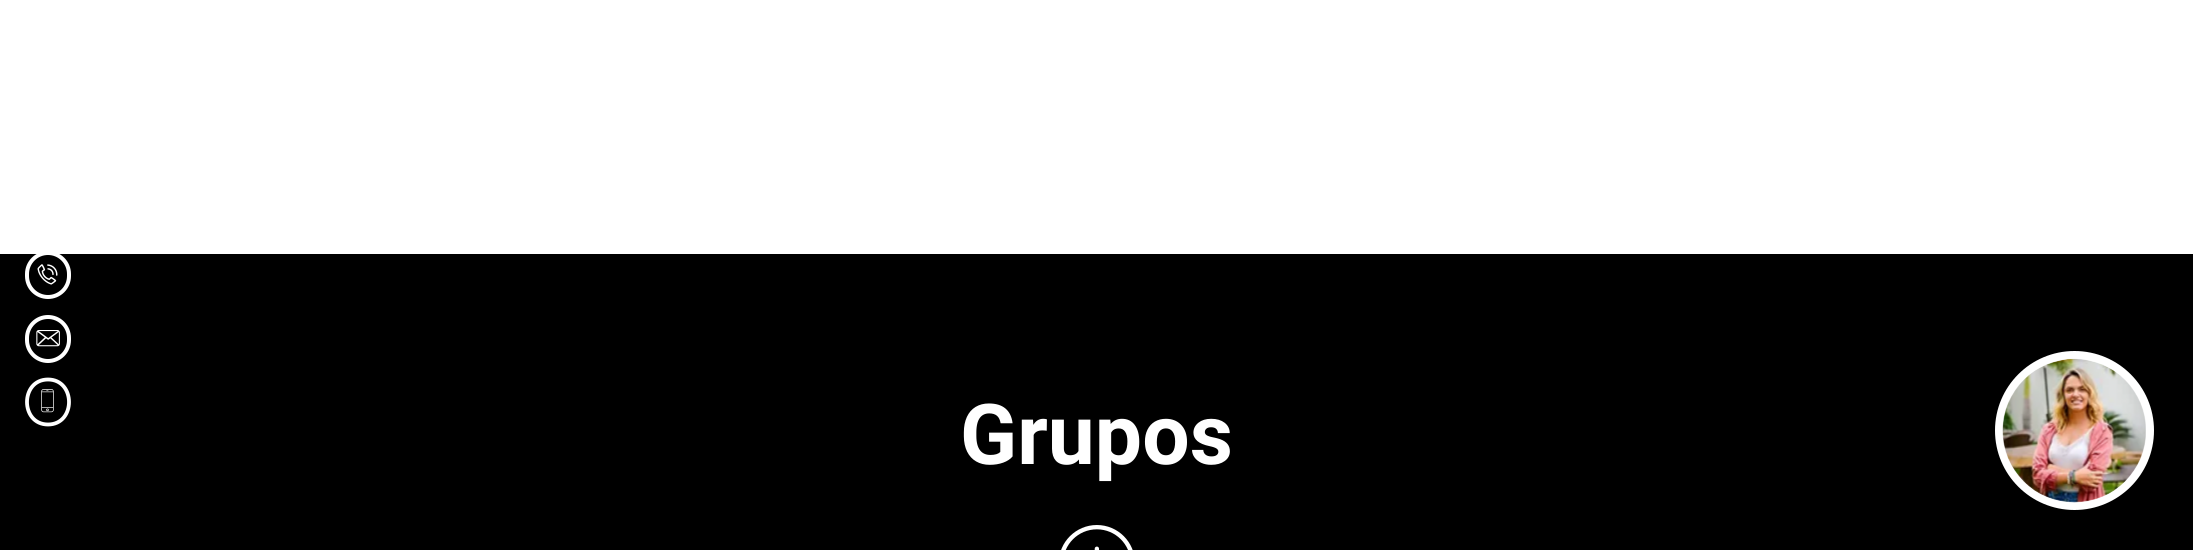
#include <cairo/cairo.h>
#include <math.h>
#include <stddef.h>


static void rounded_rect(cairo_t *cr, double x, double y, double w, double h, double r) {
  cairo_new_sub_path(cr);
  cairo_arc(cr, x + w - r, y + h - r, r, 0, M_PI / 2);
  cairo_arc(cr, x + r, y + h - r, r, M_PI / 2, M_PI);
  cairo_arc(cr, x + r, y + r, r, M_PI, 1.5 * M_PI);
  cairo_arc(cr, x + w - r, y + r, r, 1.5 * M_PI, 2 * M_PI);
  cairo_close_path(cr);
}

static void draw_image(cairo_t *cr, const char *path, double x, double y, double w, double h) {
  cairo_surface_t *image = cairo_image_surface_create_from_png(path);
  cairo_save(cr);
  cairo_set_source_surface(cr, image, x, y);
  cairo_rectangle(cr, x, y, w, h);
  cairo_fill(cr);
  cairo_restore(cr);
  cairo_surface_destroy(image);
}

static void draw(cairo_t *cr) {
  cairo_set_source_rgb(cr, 1, 1, 1);
  cairo_paint(cr);
  cairo_set_source_rgb(cr, 0, 0, 0);
  cairo_rectangle(cr, 0, 254, 2193, 296);
  cairo_fill(cr);
  rounded_rect(cr, 27, 253, 42, 44, 21);
  cairo_set_source_rgb(cr, 1, 1, 1);
  cairo_set_line_width(cr, 4);
  cairo_stroke(cr);
  draw_image(cr, "images/1.png", 37, 264, 21, 21);
  rounded_rect(cr, 27, 317, 42, 44, 21);
  cairo_stroke(cr);
  draw_image(cr, "images/2.png", 36, 330, 24, 17);
  cairo_new_path(cr);
  cairo_move_to(cr, 48, 379.5);
  cairo_curve_to(cr, 76, 379.5, 76, 424.5, 48, 424.5);
  cairo_curve_to(cr, 20, 424.5, 20, 379.5, 48, 379.5);
  cairo_close_path(cr);
  cairo_set_line_width(cr, 3.8);
  cairo_stroke(cr);
  draw_image(cr, "images/3.png", 41, 389, 13, 24);
  draw_image(cr, "images/4.png", 1061, 525, 72, 25);
  cairo_arc(cr, 2074.5, 430.5, 75.5, 0, 2 * M_PI);
  cairo_fill_preserve(cr);
  cairo_set_line_width(cr, 8);
  cairo_stroke(cr);
  draw_image(cr, "images/5.png", 2002, 358, 144, 145);
  cairo_select_font_face(cr, "Roboto", CAIRO_FONT_SLANT_NORMAL, CAIRO_FONT_WEIGHT_BOLD);
  cairo_set_font_size(cr, 84);
  cairo_move_to(cr, 960, 464);
  cairo_show_text(cr, "Grupos");
}

int main(void) {
  cairo_surface_t *surface = cairo_image_surface_create(CAIRO_FORMAT_RGB24, 2193, 550);
  cairo_t *cr = cairo_create(surface);
  cairo_font_options_t *options = cairo_font_options_create();
  cairo_font_options_set_hint_metrics(options, CAIRO_HINT_METRICS_OFF);
  cairo_font_options_set_hint_style(options, CAIRO_HINT_STYLE_NONE);
  cairo_set_font_options(cr, options);
  cairo_set_miter_limit(cr, 4);
  draw(cr);
  cairo_surface_write_to_png(surface, "out.png");
  cairo_font_options_destroy(options);
  cairo_destroy(cr);
  cairo_surface_destroy(surface);
  return 0;
}
